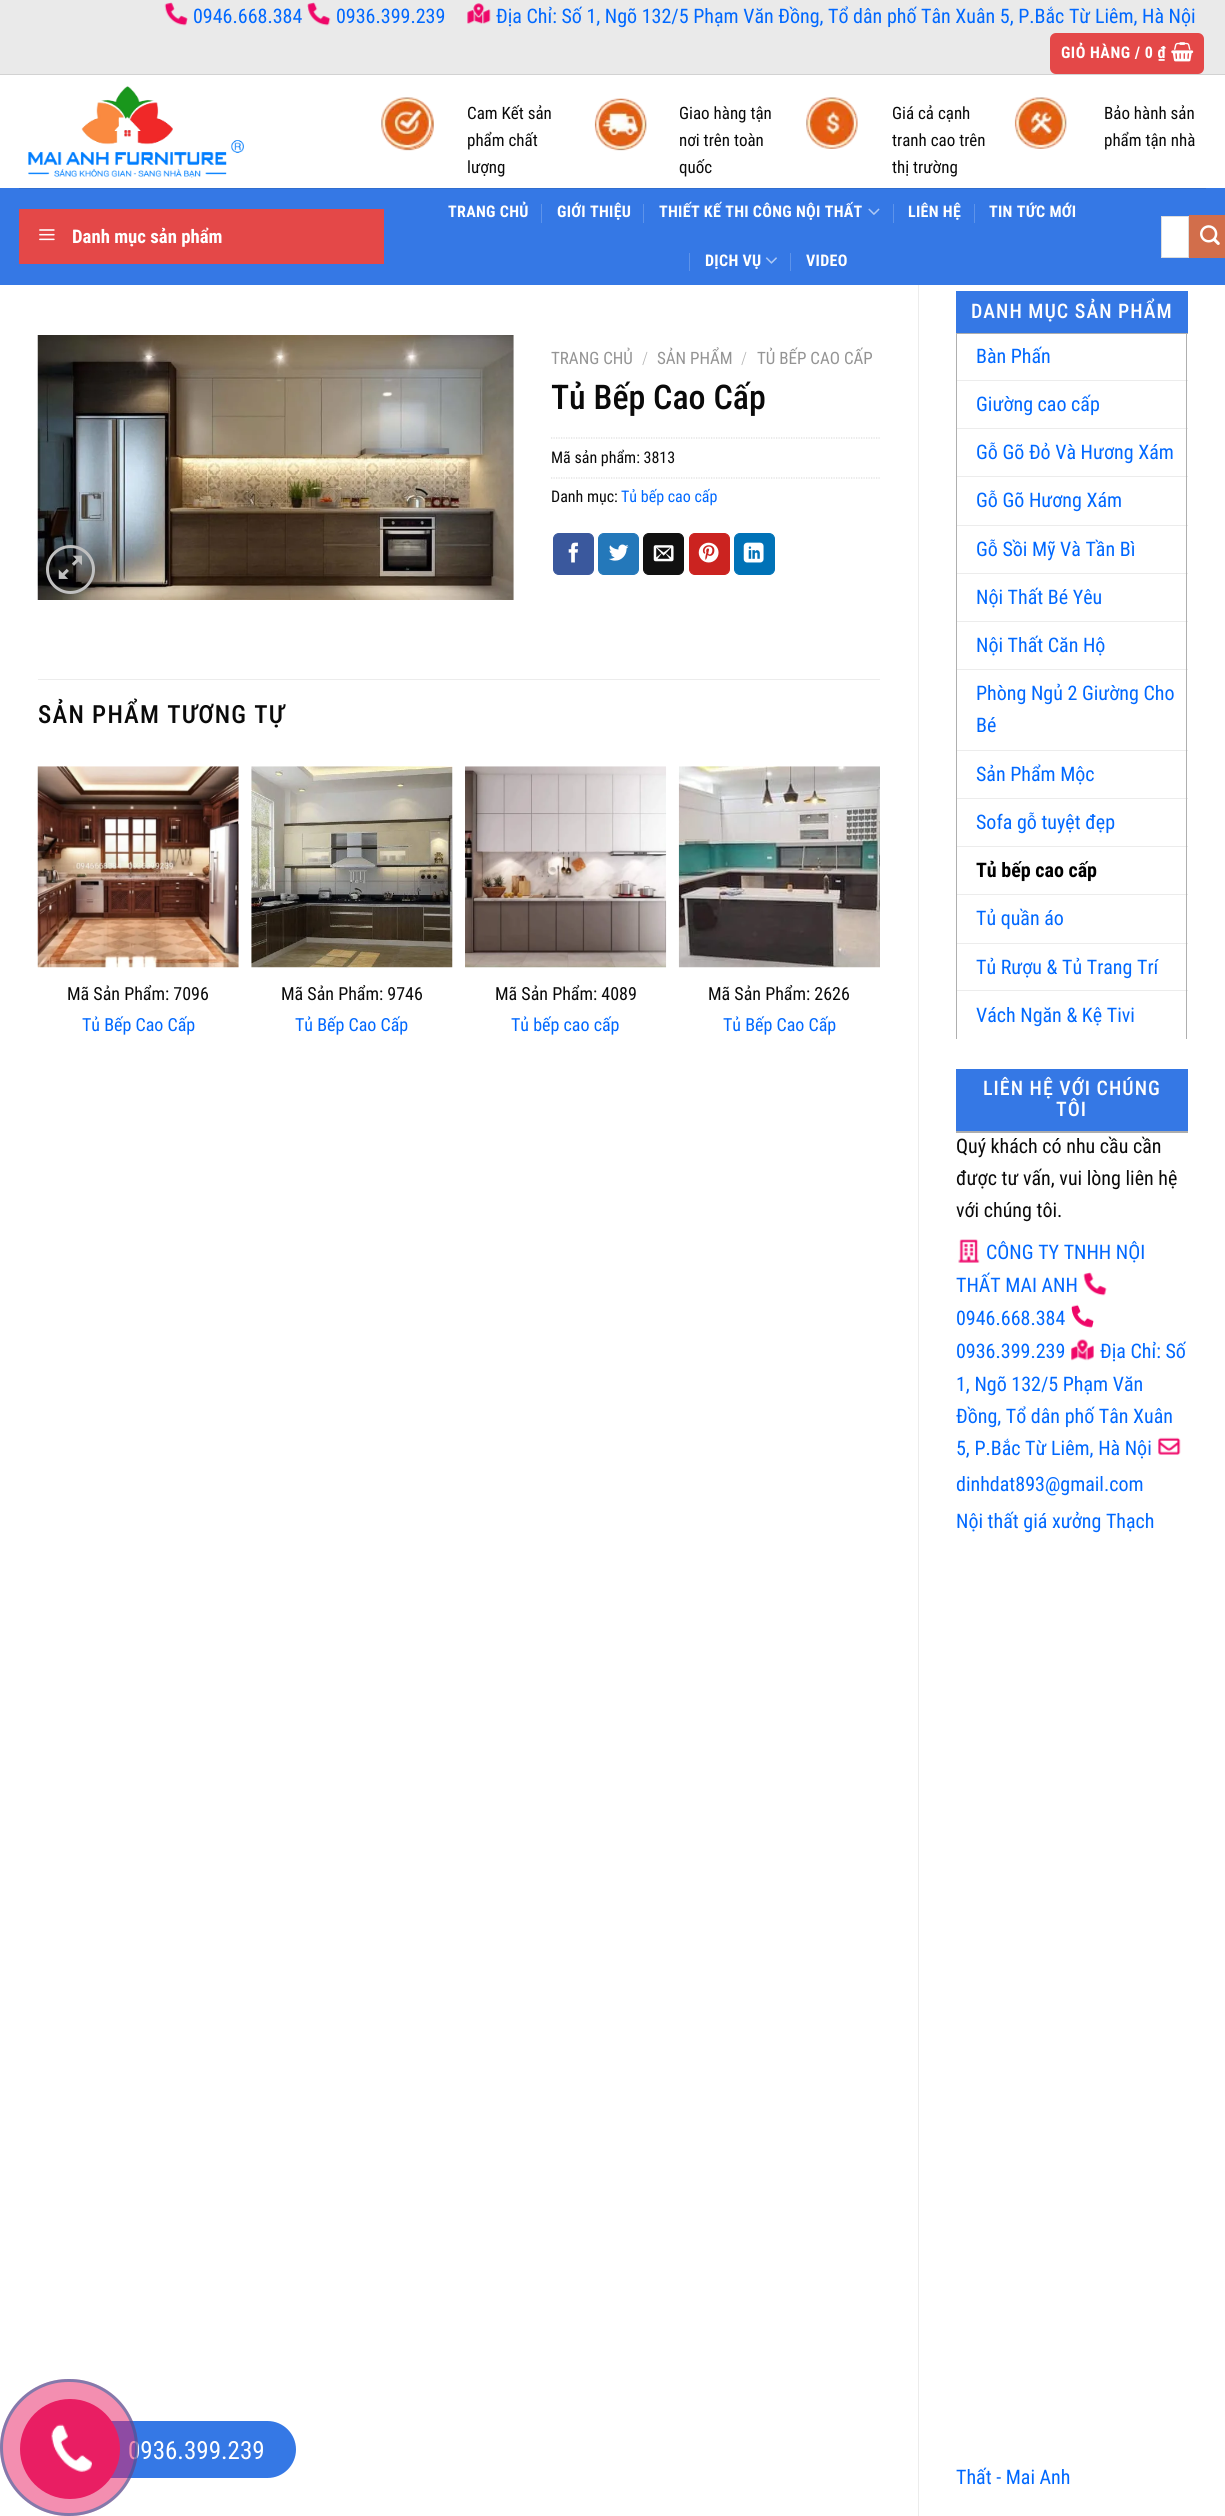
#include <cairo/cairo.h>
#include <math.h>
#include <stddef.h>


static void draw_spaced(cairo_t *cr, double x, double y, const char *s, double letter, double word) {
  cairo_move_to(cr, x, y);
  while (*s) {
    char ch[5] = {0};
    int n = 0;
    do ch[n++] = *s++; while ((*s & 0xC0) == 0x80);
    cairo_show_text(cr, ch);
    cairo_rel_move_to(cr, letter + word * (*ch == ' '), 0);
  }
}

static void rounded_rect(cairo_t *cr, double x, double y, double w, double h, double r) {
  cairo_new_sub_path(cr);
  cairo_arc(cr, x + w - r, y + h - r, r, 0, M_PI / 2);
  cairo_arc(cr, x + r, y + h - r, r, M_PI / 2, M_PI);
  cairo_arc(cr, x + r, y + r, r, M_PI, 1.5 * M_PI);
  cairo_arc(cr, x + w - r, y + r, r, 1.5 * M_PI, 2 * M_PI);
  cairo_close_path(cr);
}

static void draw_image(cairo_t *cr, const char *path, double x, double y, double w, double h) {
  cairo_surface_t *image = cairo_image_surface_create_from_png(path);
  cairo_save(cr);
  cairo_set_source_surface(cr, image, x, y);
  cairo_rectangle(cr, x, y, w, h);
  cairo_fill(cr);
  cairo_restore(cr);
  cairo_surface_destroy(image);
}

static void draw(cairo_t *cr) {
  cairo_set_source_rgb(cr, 1, 1, 1);
  cairo_paint(cr);
  cairo_set_source_rgb(cr, 234 / 255.0, 234 / 255.0, 234 / 255.0);
  cairo_rectangle(cr, 0, 0, 1225, 74);
  cairo_fill(cr);
  cairo_set_source_rgb(cr, 210 / 255.0, 210 / 255.0, 210 / 255.0);
  cairo_rectangle(cr, 0, 74, 1225, 1);
  cairo_fill(cr);
  draw_image(cr, "images/1.png", 164, 2, 24, 24);
  draw_image(cr, "images/2.png", 307, 2, 24, 24);
  draw_image(cr, "images/3.png", 467, 3, 24, 21);
  cairo_set_source_rgb(cr, 228 / 255.0, 72 / 255.0, 72 / 255.0);
  rounded_rect(cr, 1050, 33, 154, 41, 6);
  cairo_fill(cr);
  draw_image(cr, "images/4.png", 1171, 42, 23, 20);
  draw_image(cr, "images/5.png", 28, 86, 216, 92);
  draw_image(cr, "images/6.png", 381, 97, 53, 54);
  draw_image(cr, "images/7.png", 594, 98, 53, 53);
  draw_image(cr, "images/8.png", 806, 97, 52, 52);
  draw_image(cr, "images/9.png", 1014, 97, 53, 52);
  cairo_set_source_rgb(cr, 53 / 255.0, 120 / 255.0, 229 / 255.0);
  cairo_rectangle(cr, 0, 188, 1225, 97);
  cairo_fill(cr);
  cairo_set_source_rgb(cr, 49 / 255.0, 109 / 255.0, 207 / 255.0);
  cairo_rectangle(cr, 19, 188, 1187, 1);
  cairo_fill(cr);
  cairo_set_source_rgb(cr, 228 / 255.0, 72 / 255.0, 72 / 255.0);
  cairo_rectangle(cr, 19, 209, 365, 55);
  cairo_fill(cr);
  draw_image(cr, "images/10.png", 39, 229, 16, 12);
  cairo_set_source_rgb(cr, 93 / 255.0, 147 / 255.0, 234 / 255.0);
  cairo_rectangle(cr, 541, 204, 1, 19);
  cairo_fill(cr);
  cairo_rectangle(cr, 643, 204, 1, 19);
  cairo_fill(cr);
  draw_image(cr, "images/11.png", 868, 208, 12, 7);
  cairo_rectangle(cr, 893, 204, 1, 19);
  cairo_fill(cr);
  cairo_rectangle(cr, 974, 204, 1, 19);
  cairo_fill(cr);
  cairo_rectangle(cr, 689, 253, 1, 18);
  cairo_fill(cr);
  draw_image(cr, "images/12.png", 765, 257, 12, 7);
  cairo_rectangle(cr, 790, 253, 1, 18);
  cairo_fill(cr);
  cairo_set_source_rgb(cr, 1, 1, 1);
  cairo_rectangle(cr, 1161.5, 216.5, 27, 41);
  cairo_fill_preserve(cr);
  cairo_set_source_rgb(cr, 221 / 255.0, 221 / 255.0, 221 / 255.0);
  cairo_set_line_width(cr, 1);
  cairo_stroke(cr);
  cairo_set_source_rgb(cr, 210 / 255.0, 110 / 255.0, 75 / 255.0);
  cairo_rectangle(cr, 1189, 215, 36, 43);
  cairo_fill(cr);
  draw_image(cr, "images/13.png", 1200, 225, 20, 20);
  cairo_set_source_rgb(cr, 236 / 255.0, 236 / 255.0, 236 / 255.0);
  cairo_rectangle(cr, 918, 285, 1, 2231);
  cairo_fill(cr);
  draw_image(cr, "images/14.png", 37, 335, 477, 265);
  cairo_arc(cr, 70.5, 569.5, 23, 0, 2 * M_PI);
  cairo_set_source_rgb(cr, 192 / 255.0, 192 / 255.0, 192 / 255.0);
  cairo_set_line_width(cr, 3);
  cairo_stroke(cr);
  draw_image(cr, "images/15.png", 58, 555, 24, 24);
  cairo_new_path(cr);
  cairo_move_to(cr, 551, 438);
  cairo_line_to(cr, 880, 438);
  cairo_set_source_rgb(cr, 221 / 255.0, 221 / 255.0, 221 / 255.0);
  cairo_set_line_width(cr, 1.2);
  cairo_set_dash(cr, (double[]){1.25, 1.25}, 2, 0);
  cairo_stroke(cr);
  cairo_new_path(cr);
  cairo_move_to(cr, 551, 478);
  cairo_line_to(cr, 880, 478);
  cairo_stroke(cr);
  cairo_set_source_rgb(cr, 58 / 255.0, 88 / 255.0, 157 / 255.0);
  rounded_rect(cr, 553.5, 533.5, 40, 41, 5.5);
  cairo_fill_preserve(cr);
  cairo_set_line_width(cr, 1);
  cairo_set_dash(cr, NULL, 0, 0);
  cairo_stroke(cr);
  draw_image(cr, "images/16.png", 568, 542, 10, 21);
  cairo_set_source_rgb(cr, 36 / 255.0, 120 / 255.0, 186 / 255.0);
  rounded_rect(cr, 598.5, 533.5, 40, 41, 5.5);
  cairo_fill_preserve(cr);
  cairo_stroke(cr);
  draw_image(cr, "images/17.png", 609, 544, 20, 17);
  cairo_set_source_rgb(cr, 17 / 255.0, 17 / 255.0, 17 / 255.0);
  rounded_rect(cr, 643.5, 533.5, 40, 41, 5.5);
  cairo_fill_preserve(cr);
  cairo_stroke(cr);
  draw_image(cr, "images/18.png", 653, 545, 21, 17);
  cairo_set_source_rgb(cr, 203 / 255.0, 35 / 255.0, 32 / 255.0);
  rounded_rect(cr, 689.5, 533.5, 40, 41, 5.5);
  cairo_fill_preserve(cr);
  cairo_stroke(cr);
  draw_image(cr, "images/19.png", 698, 542, 21, 21);
  cairo_set_source_rgb(cr, 0, 114 / 255.0, 183 / 255.0);
  rounded_rect(cr, 734.5, 533.5, 40, 41, 5.5);
  cairo_fill_preserve(cr);
  cairo_stroke(cr);
  draw_image(cr, "images/20.png", 743, 542, 21, 21);
  cairo_set_source_rgb(cr, 236 / 255.0, 236 / 255.0, 236 / 255.0);
  cairo_rectangle(cr, 38, 679, 842, 1);
  cairo_fill(cr);
  draw_image(cr, "images/21.png", 37, 766, 202, 202);
  draw_image(cr, "images/22.png", 251, 766, 202, 202);
  draw_image(cr, "images/23.png", 465, 766, 202, 202);
  draw_image(cr, "images/24.png", 678, 766, 202, 202);
  cairo_set_source_rgb(cr, 173 / 255.0, 173 / 255.0, 173 / 255.0);
  cairo_new_path(cr);
  cairo_move_to(cr, 956, 293);
  cairo_line_to(cr, 956, 334);
  cairo_line_to(cr, 1188, 334);
  cairo_line_to(cr, 1188, 293);
  cairo_line_to(cr, 1188, 332);
  cairo_line_to(cr, 956, 332);
  cairo_close_path(cr);
  cairo_fill(cr);
  cairo_set_source_rgb(cr, 53 / 255.0, 120 / 255.0, 229 / 255.0);
  cairo_rectangle(cr, 956, 291, 232, 42);
  cairo_fill(cr);
  cairo_set_source_rgb(cr, 175 / 255.0, 175 / 255.0, 175 / 255.0);
  cairo_rectangle(cr, 1186, 333, 1, 47);
  cairo_fill(cr);
  cairo_rectangle(cr, 956, 333, 1, 47);
  cairo_fill(cr);
  cairo_set_source_rgb(cr, 236 / 255.0, 236 / 255.0, 236 / 255.0);
  cairo_rectangle(cr, 956, 380, 232, 1);
  cairo_fill(cr);
  cairo_set_source_rgb(cr, 175 / 255.0, 175 / 255.0, 175 / 255.0);
  cairo_rectangle(cr, 1186, 380, 1, 48);
  cairo_fill(cr);
  cairo_rectangle(cr, 956, 380, 1, 48);
  cairo_fill(cr);
  cairo_set_source_rgb(cr, 236 / 255.0, 236 / 255.0, 236 / 255.0);
  cairo_rectangle(cr, 956, 428, 232, 1);
  cairo_fill(cr);
  cairo_set_source_rgb(cr, 175 / 255.0, 175 / 255.0, 175 / 255.0);
  cairo_rectangle(cr, 1186, 428, 1, 48);
  cairo_fill(cr);
  cairo_rectangle(cr, 956, 428, 1, 48);
  cairo_fill(cr);
  cairo_set_source_rgb(cr, 236 / 255.0, 236 / 255.0, 236 / 255.0);
  cairo_rectangle(cr, 956, 476, 232, 1);
  cairo_fill(cr);
  cairo_set_source_rgb(cr, 175 / 255.0, 175 / 255.0, 175 / 255.0);
  cairo_rectangle(cr, 1186, 476, 1, 49);
  cairo_fill(cr);
  cairo_rectangle(cr, 956, 476, 1, 49);
  cairo_fill(cr);
  cairo_set_source_rgb(cr, 236 / 255.0, 236 / 255.0, 236 / 255.0);
  cairo_rectangle(cr, 956, 525, 232, 1);
  cairo_fill(cr);
  cairo_set_source_rgb(cr, 175 / 255.0, 175 / 255.0, 175 / 255.0);
  cairo_rectangle(cr, 1186, 525, 1, 48);
  cairo_fill(cr);
  cairo_rectangle(cr, 956, 525, 1, 48);
  cairo_fill(cr);
  cairo_set_source_rgb(cr, 236 / 255.0, 236 / 255.0, 236 / 255.0);
  cairo_rectangle(cr, 956, 573, 232, 1);
  cairo_fill(cr);
  cairo_set_source_rgb(cr, 175 / 255.0, 175 / 255.0, 175 / 255.0);
  cairo_rectangle(cr, 1186, 573, 1, 48);
  cairo_fill(cr);
  cairo_rectangle(cr, 956, 573, 1, 48);
  cairo_fill(cr);
  cairo_set_source_rgb(cr, 236 / 255.0, 236 / 255.0, 236 / 255.0);
  cairo_rectangle(cr, 956, 621, 232, 1);
  cairo_fill(cr);
  cairo_set_source_rgb(cr, 175 / 255.0, 175 / 255.0, 175 / 255.0);
  cairo_rectangle(cr, 1186, 621, 1, 48);
  cairo_fill(cr);
  cairo_rectangle(cr, 956, 621, 1, 48);
  cairo_fill(cr);
  cairo_set_source_rgb(cr, 236 / 255.0, 236 / 255.0, 236 / 255.0);
  cairo_rectangle(cr, 956, 669, 232, 1);
  cairo_fill(cr);
  cairo_set_source_rgb(cr, 175 / 255.0, 175 / 255.0, 175 / 255.0);
  cairo_rectangle(cr, 1186, 669, 1, 81);
  cairo_fill(cr);
  cairo_rectangle(cr, 956, 669, 1, 81);
  cairo_fill(cr);
  cairo_set_source_rgb(cr, 236 / 255.0, 236 / 255.0, 236 / 255.0);
  cairo_rectangle(cr, 956, 750, 232, 1);
  cairo_fill(cr);
  cairo_set_source_rgb(cr, 175 / 255.0, 175 / 255.0, 175 / 255.0);
  cairo_rectangle(cr, 1186, 750, 1, 48);
  cairo_fill(cr);
  cairo_rectangle(cr, 956, 750, 1, 48);
  cairo_fill(cr);
  cairo_set_source_rgb(cr, 236 / 255.0, 236 / 255.0, 236 / 255.0);
  cairo_rectangle(cr, 956, 798, 232, 1);
  cairo_fill(cr);
  cairo_set_source_rgb(cr, 175 / 255.0, 175 / 255.0, 175 / 255.0);
  cairo_rectangle(cr, 1186, 798, 1, 48);
  cairo_fill(cr);
  cairo_rectangle(cr, 956, 798, 1, 48);
  cairo_fill(cr);
  cairo_set_source_rgb(cr, 236 / 255.0, 236 / 255.0, 236 / 255.0);
  cairo_rectangle(cr, 956, 846, 232, 1);
  cairo_fill(cr);
  cairo_set_source_rgb(cr, 175 / 255.0, 175 / 255.0, 175 / 255.0);
  cairo_rectangle(cr, 1186, 846, 1, 48);
  cairo_fill(cr);
  cairo_rectangle(cr, 956, 846, 1, 48);
  cairo_fill(cr);
  cairo_set_source_rgb(cr, 236 / 255.0, 236 / 255.0, 236 / 255.0);
  cairo_rectangle(cr, 956, 894, 232, 1);
  cairo_fill(cr);
  cairo_set_source_rgb(cr, 175 / 255.0, 175 / 255.0, 175 / 255.0);
  cairo_rectangle(cr, 1186, 894, 1, 49);
  cairo_fill(cr);
  cairo_rectangle(cr, 956, 894, 1, 49);
  cairo_fill(cr);
  cairo_set_source_rgb(cr, 236 / 255.0, 236 / 255.0, 236 / 255.0);
  cairo_rectangle(cr, 956, 943, 232, 1);
  cairo_fill(cr);
  cairo_set_source_rgb(cr, 175 / 255.0, 175 / 255.0, 175 / 255.0);
  cairo_rectangle(cr, 1186, 943, 1, 47);
  cairo_fill(cr);
  cairo_rectangle(cr, 956, 943, 1, 47);
  cairo_fill(cr);
  cairo_set_source_rgb(cr, 236 / 255.0, 236 / 255.0, 236 / 255.0);
  cairo_rectangle(cr, 956, 990, 232, 1);
  cairo_fill(cr);
  cairo_set_source_rgb(cr, 175 / 255.0, 175 / 255.0, 175 / 255.0);
  cairo_rectangle(cr, 1186, 990, 1, 49);
  cairo_fill(cr);
  cairo_rectangle(cr, 956, 990, 1, 49);
  cairo_fill(cr);
  cairo_set_source_rgb(cr, 173 / 255.0, 173 / 255.0, 173 / 255.0);
  cairo_new_path(cr);
  cairo_move_to(cr, 956, 1070);
  cairo_line_to(cr, 956, 1133);
  cairo_line_to(cr, 1188, 1133);
  cairo_line_to(cr, 1188, 1070);
  cairo_line_to(cr, 1188, 1131);
  cairo_line_to(cr, 956, 1131);
  cairo_close_path(cr);
  cairo_fill(cr);
  cairo_set_source_rgb(cr, 53 / 255.0, 120 / 255.0, 229 / 255.0);
  cairo_rectangle(cr, 956, 1069, 232, 62);
  cairo_fill(cr);
  draw_image(cr, "images/25.png", 958, 1239, 22, 24);
  draw_image(cr, "images/26.png", 1083, 1272, 24, 24);
  draw_image(cr, "images/27.png", 1071, 1304, 23, 24);
  draw_image(cr, "images/28.png", 1071, 1339, 23, 22);
  draw_image(cr, "images/29.png", 1158, 1437, 23, 18);
  rounded_rect(cr, 65, 2421, 231, 57, 28.5);
  cairo_fill(cr);
  cairo_select_font_face(cr, "Roboto Condensed", CAIRO_FONT_SLANT_NORMAL, CAIRO_FONT_WEIGHT_NORMAL);
  cairo_set_font_size(cr, 20);
  cairo_set_source_rgb(cr, 0, 104 / 255.0, 1);
  cairo_move_to(cr, 193, 23);
  cairo_show_text(cr, "0946.668.384");
  cairo_move_to(cr, 336, 23);
  cairo_show_text(cr, "0936.399.239");
  cairo_move_to(cr, 496, 23);
  cairo_show_text(cr, "Địa Chỉ: Số 1, Ngõ 132/5 Phạm Văn Đồng, Tổ dân phố Tân Xuân 5, P.Bắc Từ Liêm, Hà Nội");
  cairo_select_font_face(cr, "Roboto Condensed", CAIRO_FONT_SLANT_NORMAL, CAIRO_FONT_WEIGHT_BOLD);
  cairo_set_font_size(cr, 16);
  cairo_set_source_rgb(cr, 1, 1, 1);
  draw_spaced(cr, 1061, 58, "GIỎ HÀNG / 0 ₫", 0.5, 0);
  cairo_select_font_face(cr, "Roboto Condensed", CAIRO_FONT_SLANT_NORMAL, CAIRO_FONT_WEIGHT_NORMAL);
  cairo_set_font_size(cr, 17);
  cairo_set_source_rgb(cr, 10 / 255.0, 10 / 255.0, 10 / 255.0);
  cairo_move_to(cr, 467, 119);
  cairo_show_text(cr, "Cam Kết sản");
  cairo_move_to(cr, 467, 146);
  cairo_show_text(cr, "phẩm chất");
  cairo_move_to(cr, 467, 173);
  cairo_show_text(cr, "lượng");
  cairo_move_to(cr, 679, 119);
  cairo_show_text(cr, "Giao hàng tận");
  cairo_move_to(cr, 679, 146);
  cairo_show_text(cr, "nơi trên toàn");
  cairo_move_to(cr, 679, 173);
  cairo_show_text(cr, "quốc");
  cairo_move_to(cr, 892, 119);
  cairo_show_text(cr, "Giá cả cạnh");
  cairo_move_to(cr, 892, 146);
  cairo_show_text(cr, "tranh cao trên");
  cairo_move_to(cr, 892, 173);
  cairo_show_text(cr, "thị trường");
  cairo_move_to(cr, 1104, 119);
  cairo_show_text(cr, "Bảo hành sản");
  cairo_move_to(cr, 1104, 146);
  cairo_show_text(cr, "phẩm tận nhà");
  cairo_select_font_face(cr, "Roboto Condensed", CAIRO_FONT_SLANT_NORMAL, CAIRO_FONT_WEIGHT_BOLD);
  cairo_set_font_size(cr, 18.75);
  cairo_set_source_rgb(cr, 1, 1, 1);
  cairo_move_to(cr, 72, 243);
  cairo_show_text(cr, "Danh mục sản phẩm");
  cairo_set_font_size(cr, 16);
  draw_spaced(cr, 448, 217, "TRANG CHỦ", 0.3, 0);
  draw_spaced(cr, 557, 217, "GIỚI THIỆU", 0.3, 0);
  draw_spaced(cr, 659, 217, "THIẾT KẾ THI CÔNG NỘI THẤT", 0.3, 0);
  draw_spaced(cr, 908, 217, "LIÊN HỆ", 0.3, 0);
  draw_spaced(cr, 989, 217, "TIN TỨC MỚI", 0.3, 0);
  draw_spaced(cr, 705, 266, "DỊCH VỤ", 0.3, 0);
  draw_spaced(cr, 806, 266, "VIDEO", 0.3, 0);
  cairo_select_font_face(cr, "Roboto Condensed", CAIRO_FONT_SLANT_NORMAL, CAIRO_FONT_WEIGHT_NORMAL);
  cairo_set_font_size(cr, 17);
  cairo_set_source_rgb(cr, 148 / 255.0, 148 / 255.0, 148 / 255.0);
  cairo_move_to(cr, 551, 364);
  cairo_show_text(cr, "TRANG CHỦ");
  cairo_select_font_face(cr, "Roboto Condensed Light", CAIRO_FONT_SLANT_NORMAL, CAIRO_FONT_WEIGHT_NORMAL);
  cairo_set_source_rgb(cr, 178 / 255.0, 178 / 255.0, 178 / 255.0);
  cairo_move_to(cr, 642, 364);
  cairo_show_text(cr, "/");
  cairo_select_font_face(cr, "Roboto Condensed", CAIRO_FONT_SLANT_NORMAL, CAIRO_FONT_WEIGHT_NORMAL);
  cairo_set_source_rgb(cr, 148 / 255.0, 148 / 255.0, 148 / 255.0);
  cairo_move_to(cr, 657, 364);
  cairo_show_text(cr, "SẢN PHẨM");
  cairo_select_font_face(cr, "Roboto Condensed Light", CAIRO_FONT_SLANT_NORMAL, CAIRO_FONT_WEIGHT_NORMAL);
  cairo_set_source_rgb(cr, 178 / 255.0, 178 / 255.0, 178 / 255.0);
  cairo_move_to(cr, 741, 364);
  cairo_show_text(cr, "/");
  cairo_select_font_face(cr, "Roboto Condensed", CAIRO_FONT_SLANT_NORMAL, CAIRO_FONT_WEIGHT_NORMAL);
  cairo_set_source_rgb(cr, 148 / 255.0, 148 / 255.0, 148 / 255.0);
  cairo_move_to(cr, 757, 364);
  cairo_show_text(cr, "TỦ BẾP CAO CẤP");
  cairo_select_font_face(cr, "Roboto Condensed Medium", CAIRO_FONT_SLANT_NORMAL, CAIRO_FONT_WEIGHT_NORMAL);
  cairo_set_font_size(cr, 34);
  cairo_set_source_rgb(cr, 10 / 255.0, 10 / 255.0, 10 / 255.0);
  cairo_move_to(cr, 551, 409);
  cairo_show_text(cr, "Tủ Bếp Cao Cấp");
  cairo_select_font_face(cr, "Roboto Condensed", CAIRO_FONT_SLANT_NORMAL, CAIRO_FONT_WEIGHT_NORMAL);
  cairo_set_font_size(cr, 16);
  cairo_move_to(cr, 551, 463);
  cairo_show_text(cr, "Mã sản phẩm: 3813");
  cairo_move_to(cr, 551, 502);
  cairo_show_text(cr, "Danh mục:");
  cairo_set_source_rgb(cr, 0, 104 / 255.0, 1);
  cairo_move_to(cr, 621, 502);
  cairo_show_text(cr, "Tủ bếp cao cấp");
  cairo_select_font_face(cr, "Roboto Condensed Medium", CAIRO_FONT_SLANT_NORMAL, CAIRO_FONT_WEIGHT_NORMAL);
  cairo_set_font_size(cr, 25);
  cairo_set_source_rgb(cr, 10 / 255.0, 10 / 255.0, 10 / 255.0);
  draw_spaced(cr, 38, 723, "SẢN PHẨM TƯƠNG TỰ", 1.25, 0);
  cairo_select_font_face(cr, "Roboto Condensed", CAIRO_FONT_SLANT_NORMAL, CAIRO_FONT_WEIGHT_NORMAL);
  cairo_set_font_size(cr, 18);
  cairo_move_to(cr, 67, 1000);
  cairo_show_text(cr, "Mã Sản Phẩm: 7096");
  cairo_set_source_rgb(cr, 0, 104 / 255.0, 1);
  cairo_move_to(cr, 82, 1031);
  cairo_show_text(cr, "Tủ Bếp Cao Cấp");
  cairo_set_source_rgb(cr, 10 / 255.0, 10 / 255.0, 10 / 255.0);
  cairo_move_to(cr, 281, 1000);
  cairo_show_text(cr, "Mã Sản Phẩm: 9746");
  cairo_set_source_rgb(cr, 0, 104 / 255.0, 1);
  cairo_move_to(cr, 295, 1031);
  cairo_show_text(cr, "Tủ Bếp Cao Cấp");
  cairo_set_source_rgb(cr, 10 / 255.0, 10 / 255.0, 10 / 255.0);
  cairo_move_to(cr, 495, 1000);
  cairo_show_text(cr, "Mã Sản Phẩm: 4089");
  cairo_set_source_rgb(cr, 0, 104 / 255.0, 1);
  cairo_move_to(cr, 511, 1031);
  cairo_show_text(cr, "Tủ bếp cao cấp");
  cairo_set_source_rgb(cr, 10 / 255.0, 10 / 255.0, 10 / 255.0);
  cairo_move_to(cr, 708, 1000);
  cairo_show_text(cr, "Mã Sản Phẩm: 2626");
  cairo_set_source_rgb(cr, 0, 104 / 255.0, 1);
  cairo_move_to(cr, 723, 1031);
  cairo_show_text(cr, "Tủ Bếp Cao Cấp");
  cairo_select_font_face(cr, "Roboto Condensed Medium", CAIRO_FONT_SLANT_NORMAL, CAIRO_FONT_WEIGHT_NORMAL);
  cairo_set_font_size(cr, 20);
  cairo_set_source_rgb(cr, 1, 1, 1);
  draw_spaced(cr, 971, 318, "DANH MỤC SẢN PHẨM", 1, 0);
  cairo_select_font_face(cr, "Roboto Condensed", CAIRO_FONT_SLANT_NORMAL, CAIRO_FONT_WEIGHT_NORMAL);
  cairo_set_source_rgb(cr, 0, 104 / 255.0, 1);
  cairo_move_to(cr, 976, 363);
  cairo_show_text(cr, "Bàn Phấn");
  cairo_move_to(cr, 976, 411);
  cairo_show_text(cr, "Giường cao cấp");
  cairo_move_to(cr, 976, 459);
  cairo_show_text(cr, "Gỗ Gõ Đỏ Và Hương Xám");
  cairo_move_to(cr, 976, 507);
  cairo_show_text(cr, "Gỗ Gõ Hương Xám");
  cairo_move_to(cr, 976, 556);
  cairo_show_text(cr, "Gỗ Sồi Mỹ Và Tần Bì");
  cairo_move_to(cr, 976, 604);
  cairo_show_text(cr, "Nội Thất Bé Yêu");
  cairo_move_to(cr, 976, 652);
  cairo_show_text(cr, "Nội Thất Căn Hộ");
  cairo_move_to(cr, 976, 700);
  cairo_show_text(cr, "Phòng Ngủ 2 Giường Cho");
  cairo_move_to(cr, 976, 732);
  cairo_show_text(cr, "Bé");
  cairo_move_to(cr, 976, 781);
  cairo_show_text(cr, "Sản Phẩm Mộc");
  cairo_move_to(cr, 976, 829);
  cairo_show_text(cr, "Sofa gỗ tuyệt đẹp");
  cairo_select_font_face(cr, "Roboto Condensed", CAIRO_FONT_SLANT_NORMAL, CAIRO_FONT_WEIGHT_BOLD);
  cairo_set_source_rgb(cr, 0, 0, 0);
  cairo_move_to(cr, 976, 877);
  cairo_show_text(cr, "Tủ bếp cao cấp");
  cairo_select_font_face(cr, "Roboto Condensed", CAIRO_FONT_SLANT_NORMAL, CAIRO_FONT_WEIGHT_NORMAL);
  cairo_set_source_rgb(cr, 0, 104 / 255.0, 1);
  cairo_move_to(cr, 976, 925);
  cairo_show_text(cr, "Tủ quần áo");
  cairo_move_to(cr, 976, 974);
  cairo_show_text(cr, "Tủ Rượu & Tủ Trang Trí");
  cairo_move_to(cr, 976, 1022);
  cairo_show_text(cr, "Vách Ngăn & Kệ Tivi");
  cairo_select_font_face(cr, "Roboto Condensed Medium", CAIRO_FONT_SLANT_NORMAL, CAIRO_FONT_WEIGHT_NORMAL);
  cairo_set_source_rgb(cr, 1, 1, 1);
  draw_spaced(cr, 983, 1095, "LIÊN HỆ VỚI CHÚNG", 1, 0);
  draw_spaced(cr, 1056, 1116, "TÔI", 1, 0);
  cairo_select_font_face(cr, "Roboto Condensed", CAIRO_FONT_SLANT_NORMAL, CAIRO_FONT_WEIGHT_NORMAL);
  cairo_set_source_rgb(cr, 10 / 255.0, 10 / 255.0, 10 / 255.0);
  cairo_move_to(cr, 956, 1153);
  cairo_show_text(cr, "Quý khách có nhu cầu cần");
  cairo_move_to(cr, 956, 1185);
  cairo_show_text(cr, "được tư vấn, vui lòng liên hệ");
  cairo_move_to(cr, 956, 1217);
  cairo_show_text(cr, "với chúng tôi.");
  cairo_set_source_rgb(cr, 0, 104 / 255.0, 1);
  cairo_move_to(cr, 986, 1259);
  cairo_show_text(cr, "CÔNG TY TNHH NỘI");
  cairo_move_to(cr, 956, 1292);
  cairo_show_text(cr, "THẤT MAI ANH");
  cairo_move_to(cr, 956, 1325);
  cairo_show_text(cr, "0946.668.384");
  cairo_move_to(cr, 1100, 1358);
  cairo_show_text(cr, "Địa Chỉ: Số");
  cairo_move_to(cr, 956, 1391);
  cairo_show_text(cr, "1, Ngõ 132/5 Phạm Văn");
  cairo_move_to(cr, 956, 1423);
  cairo_show_text(cr, "Đồng, Tổ dân phố Tân Xuân");
  cairo_move_to(cr, 956, 1455);
  cairo_show_text(cr, "5, P.Bắc Từ Liêm, Hà Nội");
  cairo_move_to(cr, 956, 1358);
  cairo_show_text(cr, "0936.399.239");
  cairo_move_to(cr, 956, 1491);
  cairo_show_text(cr, "dinhdat893@gmail.com");
  cairo_move_to(cr, 956, 1528);
  cairo_show_text(cr, "Nội thất giá xưởng Thạch");
  cairo_move_to(cr, 956, 2484);
  cairo_show_text(cr, "Thất - Mai Anh");
  cairo_set_font_size(cr, 25);
  cairo_set_source_rgb(cr, 1, 1, 1);
  cairo_move_to(cr, 128, 2459);
  cairo_show_text(cr, "0936.399.239");
  cairo_set_source_rgba(cr, 233 / 255.0, 30 / 255.0, 99 / 255.0, 0.5);
  rounded_rect(cr, 0, 2379, 138, 137, 68.5);
  cairo_fill(cr);
  rounded_rect(cr, 1.5, 2380.5, 135, 134, 67);
  cairo_set_source_rgba(cr, 21 / 255.0, 100 / 255.0, 167 / 255.0, 0.5);
  cairo_set_line_width(cr, 3);
  cairo_stroke(cr);
  cairo_set_source_rgb(cr, 233 / 255.0, 30 / 255.0, 99 / 255.0);
  cairo_arc(cr, 70, 2449, 50, 0, 2 * M_PI);
  cairo_fill(cr);
  draw_image(cr, "images/30.png", 51, 2424, 41, 48);
}

int main(void) {
  cairo_surface_t *surface = cairo_image_surface_create(CAIRO_FORMAT_RGB24, 1225, 2516);
  cairo_t *cr = cairo_create(surface);
  cairo_font_options_t *options = cairo_font_options_create();
  cairo_font_options_set_hint_metrics(options, CAIRO_HINT_METRICS_OFF);
  cairo_font_options_set_hint_style(options, CAIRO_HINT_STYLE_NONE);
  cairo_set_font_options(cr, options);
  cairo_set_miter_limit(cr, 4);
  draw(cr);
  cairo_surface_write_to_png(surface, "out.png");
  cairo_font_options_destroy(options);
  cairo_destroy(cr);
  cairo_surface_destroy(surface);
  return 0;
}
